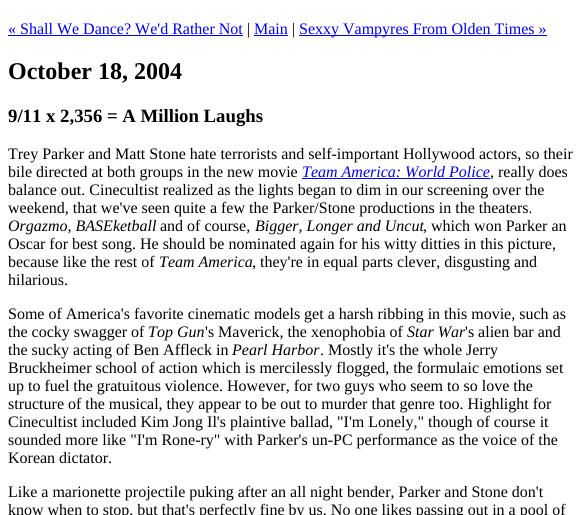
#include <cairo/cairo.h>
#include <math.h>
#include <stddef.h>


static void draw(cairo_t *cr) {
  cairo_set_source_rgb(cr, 1, 1, 1);
  cairo_paint(cr);
  cairo_set_source_rgb(cr, 0, 0, 238 / 255.0);
  cairo_rectangle(cr, 8, 35, 235, 1);
  cairo_fill(cr);
  cairo_rectangle(cr, 254, 35, 34, 1);
  cairo_fill(cr);
  cairo_rectangle(cr, 299, 35, 248, 1);
  cairo_fill(cr);
  cairo_rectangle(cr, 302, 178, 188, 1);
  cairo_fill(cr);
  cairo_select_font_face(cr, "Liberation Serif", CAIRO_FONT_SLANT_NORMAL, CAIRO_FONT_WEIGHT_NORMAL);
  cairo_set_font_size(cr, 16);
  cairo_move_to(cr, 8, 34);
  cairo_show_text(cr, "« Shall We Dance? We'd Rather Not");
  cairo_set_source_rgb(cr, 0, 0, 0);
  cairo_move_to(cr, 247, 34);
  cairo_show_text(cr, "|");
  cairo_set_source_rgb(cr, 0, 0, 238 / 255.0);
  cairo_move_to(cr, 254, 34);
  cairo_show_text(cr, "Main");
  cairo_set_source_rgb(cr, 0, 0, 0);
  cairo_move_to(cr, 292, 34);
  cairo_show_text(cr, "|");
  cairo_set_source_rgb(cr, 0, 0, 238 / 255.0);
  cairo_move_to(cr, 299, 34);
  cairo_show_text(cr, "Sexxy Vampyres From Olden Times »");
  cairo_select_font_face(cr, "Liberation Serif", CAIRO_FONT_SLANT_NORMAL, CAIRO_FONT_WEIGHT_BOLD);
  cairo_set_font_size(cr, 24);
  cairo_set_source_rgb(cr, 0, 0, 0);
  cairo_move_to(cr, 8, 79);
  cairo_show_text(cr, "October 18, 2004");
  cairo_set_font_size(cr, 18.75);
  cairo_move_to(cr, 8, 122);
  cairo_show_text(cr, "9/11 x 2,356 = A Million Laughs");
  cairo_select_font_face(cr, "Liberation Serif", CAIRO_FONT_SLANT_NORMAL, CAIRO_FONT_WEIGHT_NORMAL);
  cairo_set_font_size(cr, 16);
  cairo_move_to(cr, 8, 159);
  cairo_show_text(cr, "Trey Parker and Matt Stone hate terrorists and self-important Hollywood actors, so their");
  cairo_move_to(cr, 8, 177);
  cairo_show_text(cr, "bile directed at both groups in the new movie");
  cairo_select_font_face(cr, "Liberation Serif", CAIRO_FONT_SLANT_ITALIC, CAIRO_FONT_WEIGHT_NORMAL);
  cairo_set_source_rgb(cr, 0, 0, 238 / 255.0);
  cairo_move_to(cr, 302, 177);
  cairo_show_text(cr, "Team America: World Police");
  cairo_select_font_face(cr, "Liberation Serif", CAIRO_FONT_SLANT_NORMAL, CAIRO_FONT_WEIGHT_NORMAL);
  cairo_set_source_rgb(cr, 0, 0, 0);
  cairo_move_to(cr, 490, 177);
  cairo_show_text(cr, ", really does");
  cairo_move_to(cr, 8, 195);
  cairo_show_text(cr, "balance out. Cinecultist realized as the lights began to dim in our screening over the");
  cairo_move_to(cr, 8, 213);
  cairo_show_text(cr, "weekend, that we've seen quite a few the Parker/Stone productions in the theaters.");
  cairo_select_font_face(cr, "Liberation Serif", CAIRO_FONT_SLANT_ITALIC, CAIRO_FONT_WEIGHT_NORMAL);
  cairo_move_to(cr, 8, 231);
  cairo_show_text(cr, "Orgazmo, BASEketball");
  cairo_select_font_face(cr, "Liberation Serif", CAIRO_FONT_SLANT_NORMAL, CAIRO_FONT_WEIGHT_NORMAL);
  cairo_move_to(cr, 160, 231);
  cairo_show_text(cr, "and of course,");
  cairo_select_font_face(cr, "Liberation Serif", CAIRO_FONT_SLANT_ITALIC, CAIRO_FONT_WEIGHT_NORMAL);
  cairo_move_to(cr, 255, 231);
  cairo_show_text(cr, "Bigger, Longer and Uncut");
  cairo_select_font_face(cr, "Liberation Serif", CAIRO_FONT_SLANT_NORMAL, CAIRO_FONT_WEIGHT_NORMAL);
  cairo_move_to(cr, 423, 231);
  cairo_show_text(cr, ", which won Parker an");
  cairo_move_to(cr, 8, 249);
  cairo_show_text(cr, "Oscar for best song. He should be nominated again for his witty ditties in this picture,");
  cairo_move_to(cr, 8, 267);
  cairo_show_text(cr, "because like the rest of");
  cairo_select_font_face(cr, "Liberation Serif", CAIRO_FONT_SLANT_ITALIC, CAIRO_FONT_WEIGHT_NORMAL);
  cairo_move_to(cr, 159, 267);
  cairo_show_text(cr, "Team America");
  cairo_select_font_face(cr, "Liberation Serif", CAIRO_FONT_SLANT_NORMAL, CAIRO_FONT_WEIGHT_NORMAL);
  cairo_move_to(cr, 252, 267);
  cairo_show_text(cr, ", they're in equal parts clever, disgusting and");
  cairo_move_to(cr, 8, 285);
  cairo_show_text(cr, "hilarious.");
  cairo_move_to(cr, 8, 319);
  cairo_show_text(cr, "Some of America's favorite cinematic models get a harsh ribbing in this movie, such as");
  cairo_move_to(cr, 8, 337);
  cairo_show_text(cr, "the cocky swagger of");
  cairo_select_font_face(cr, "Liberation Serif", CAIRO_FONT_SLANT_ITALIC, CAIRO_FONT_WEIGHT_NORMAL);
  cairo_move_to(cr, 148, 337);
  cairo_show_text(cr, "Top Gun");
  cairo_select_font_face(cr, "Liberation Serif", CAIRO_FONT_SLANT_NORMAL, CAIRO_FONT_WEIGHT_NORMAL);
  cairo_move_to(cr, 205, 337);
  cairo_show_text(cr, "'s Maverick, the xenophobia of");
  cairo_select_font_face(cr, "Liberation Serif", CAIRO_FONT_SLANT_ITALIC, CAIRO_FONT_WEIGHT_NORMAL);
  cairo_move_to(cr, 407, 337);
  cairo_show_text(cr, "Star War");
  cairo_select_font_face(cr, "Liberation Serif", CAIRO_FONT_SLANT_NORMAL, CAIRO_FONT_WEIGHT_NORMAL);
  cairo_move_to(cr, 465, 337);
  cairo_show_text(cr, "'s alien bar and");
  cairo_move_to(cr, 8, 355);
  cairo_show_text(cr, "the sucky acting of Ben Affleck in");
  cairo_select_font_face(cr, "Liberation Serif", CAIRO_FONT_SLANT_ITALIC, CAIRO_FONT_WEIGHT_NORMAL);
  cairo_move_to(cr, 232, 355);
  cairo_show_text(cr, "Pearl Harbor");
  cairo_select_font_face(cr, "Liberation Serif", CAIRO_FONT_SLANT_NORMAL, CAIRO_FONT_WEIGHT_NORMAL);
  cairo_move_to(cr, 320, 355);
  cairo_show_text(cr, ". Mostly it's the whole Jerry");
  cairo_move_to(cr, 8, 373);
  cairo_show_text(cr, "Bruckheimer school of action which is mercilessly flogged, the formulaic emotions set");
  cairo_move_to(cr, 8, 391);
  cairo_show_text(cr, "up to fuel the gratuitous violence. However, for two guys who seem to so love the");
  cairo_move_to(cr, 8, 409);
  cairo_show_text(cr, "structure of the musical, they appear to be out to murder that genre too. Highlight for");
  cairo_move_to(cr, 8, 427);
  cairo_show_text(cr, "Cinecultist included Kim Jong Il's plaintive ballad, \"I'm Lonely,\" though of course it");
  cairo_move_to(cr, 8, 445);
  cairo_show_text(cr, "sounded more like \"I'm Rone-ry\" with Parker's un-PC performance as the voice of the");
  cairo_move_to(cr, 8, 463);
  cairo_show_text(cr, "Korean dictator.");
  cairo_move_to(cr, 8, 497);
  cairo_show_text(cr, "Like a marionette projectile puking after an all night bender, Parker and Stone don't");
  cairo_move_to(cr, 8, 515);
  cairo_show_text(cr, "know when to stop, but that's perfectly fine by us. No one likes passing out in a pool of");
}

int main(void) {
  cairo_surface_t *surface = cairo_image_surface_create(CAIRO_FORMAT_RGB24, 581, 515);
  cairo_t *cr = cairo_create(surface);
  cairo_font_options_t *options = cairo_font_options_create();
  cairo_font_options_set_hint_metrics(options, CAIRO_HINT_METRICS_OFF);
  cairo_font_options_set_hint_style(options, CAIRO_HINT_STYLE_NONE);
  cairo_set_font_options(cr, options);
  cairo_set_miter_limit(cr, 4);
  draw(cr);
  cairo_surface_write_to_png(surface, "out.png");
  cairo_font_options_destroy(options);
  cairo_destroy(cr);
  cairo_surface_destroy(surface);
  return 0;
}
